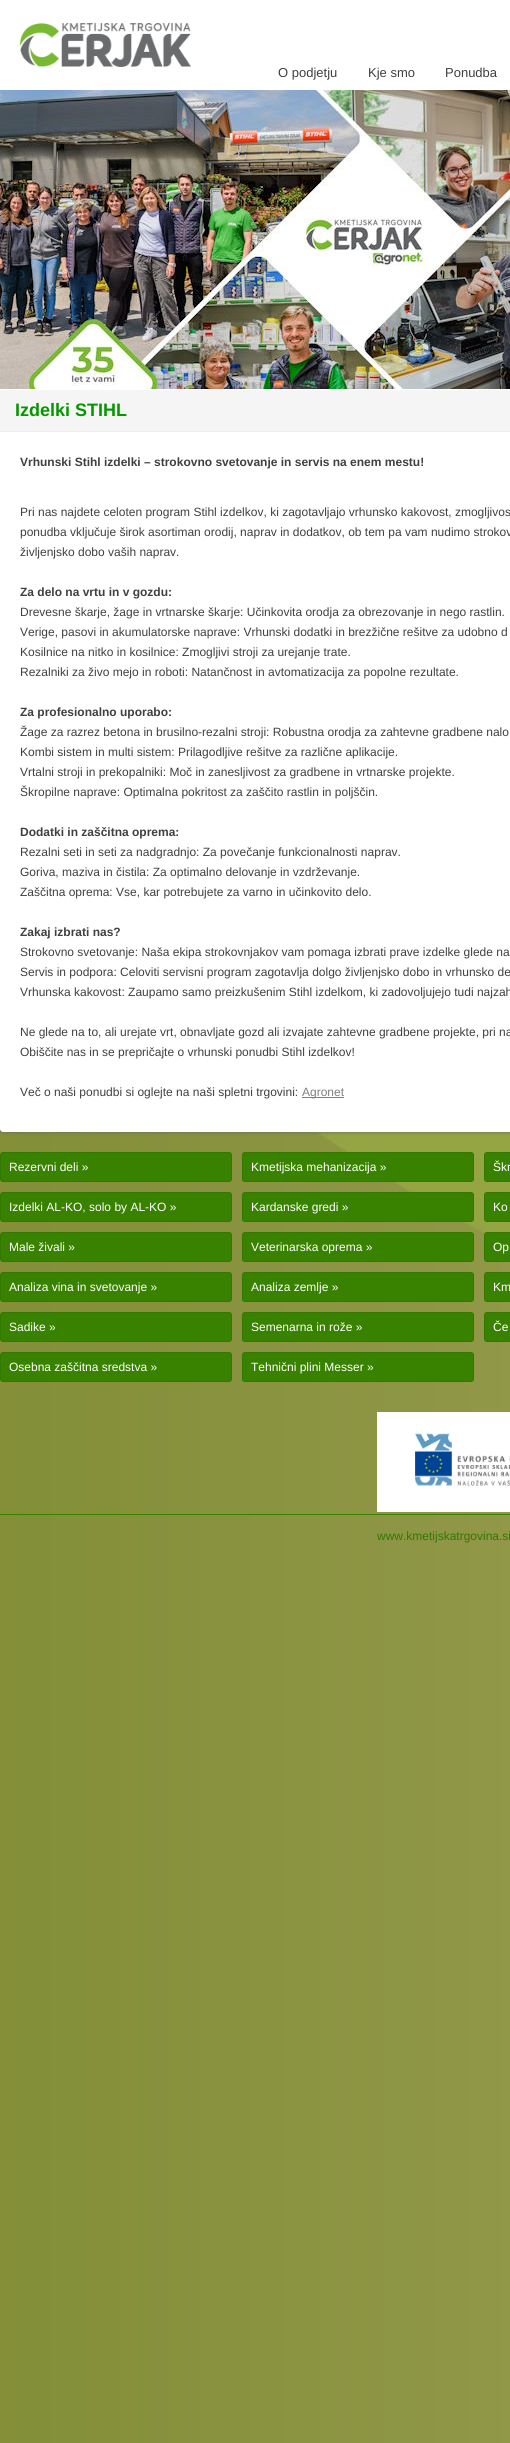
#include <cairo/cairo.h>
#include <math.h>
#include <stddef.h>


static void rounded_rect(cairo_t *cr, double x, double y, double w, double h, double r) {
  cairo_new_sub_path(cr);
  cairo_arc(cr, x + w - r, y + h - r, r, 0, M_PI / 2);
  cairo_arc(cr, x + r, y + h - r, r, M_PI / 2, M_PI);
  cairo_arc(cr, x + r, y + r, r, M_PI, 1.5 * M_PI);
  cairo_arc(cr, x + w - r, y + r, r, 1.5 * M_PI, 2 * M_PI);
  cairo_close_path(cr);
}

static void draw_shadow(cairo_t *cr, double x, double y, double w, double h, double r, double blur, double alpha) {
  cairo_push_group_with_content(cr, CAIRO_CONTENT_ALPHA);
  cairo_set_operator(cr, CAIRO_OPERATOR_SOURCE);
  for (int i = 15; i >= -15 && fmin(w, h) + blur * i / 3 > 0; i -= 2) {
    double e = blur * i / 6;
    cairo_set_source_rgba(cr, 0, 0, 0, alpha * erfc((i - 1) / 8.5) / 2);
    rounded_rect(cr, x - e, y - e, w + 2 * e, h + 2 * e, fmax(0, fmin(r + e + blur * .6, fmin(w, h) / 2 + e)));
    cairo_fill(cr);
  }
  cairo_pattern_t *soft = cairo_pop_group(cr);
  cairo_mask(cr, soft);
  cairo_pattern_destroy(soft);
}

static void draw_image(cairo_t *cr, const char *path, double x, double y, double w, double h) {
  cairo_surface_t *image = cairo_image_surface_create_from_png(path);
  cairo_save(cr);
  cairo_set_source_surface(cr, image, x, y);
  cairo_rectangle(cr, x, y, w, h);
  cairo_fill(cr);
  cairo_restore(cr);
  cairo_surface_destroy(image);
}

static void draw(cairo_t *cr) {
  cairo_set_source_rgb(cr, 1, 1, 1);
  cairo_paint(cr);
  draw_image(cr, "images/1.png", 0, 1129, 510, 1314);
  cairo_set_source_rgb(cr, 102 / 255.0, 102 / 255.0, 102 / 255.0);
  draw_shadow(cr, 0, 0, 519, 1132, 3, 2, 1);
  cairo_set_source_rgb(cr, 1, 1, 1);
  cairo_rectangle(cr, 0, 0, 510, 90);
  cairo_fill(cr);
  draw_image(cr, "images/2.png", 20, 23, 171, 44);
  cairo_new_path(cr);
  cairo_move_to(cr, 0, 90);
  cairo_line_to(cr, 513, 90);
  cairo_line_to(cr, 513, 1129);
  cairo_curve_to(cr, 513, 1130.5, 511.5, 1132, 510, 1132);
  cairo_line_to(cr, 3, 1132);
  cairo_curve_to(cr, 1.5, 1132, 0, 1130.5, 0, 1129);
  cairo_close_path(cr);
  cairo_fill(cr);
  draw_image(cr, "images/3.png", 0, 90, 510, 299);
  cairo_set_source_rgb(cr, 245 / 255.0, 245 / 255.0, 245 / 255.0);
  cairo_rectangle(cr, 0, 390, 510, 41);
  cairo_fill(cr);
  cairo_set_source_rgb(cr, 238 / 255.0, 238 / 255.0, 238 / 255.0);
  cairo_rectangle(cr, 0, 431, 510, 1);
  cairo_fill(cr);
  cairo_set_source_rgb(cr, 128 / 255.0, 128 / 255.0, 128 / 255.0);
  cairo_rectangle(cr, 302, 1097, 42, 1);
  cairo_fill(cr);
  cairo_set_source_rgb(cr, 56 / 255.0, 130 / 255.0, 0);
  rounded_rect(cr, 0.5, 1152.5, 231, 29, 2.5);
  cairo_fill_preserve(cr);
  cairo_set_source_rgb(cr, 51 / 255.0, 120 / 255.0, 0);
  cairo_set_line_width(cr, 1);
  cairo_stroke(cr);
  cairo_set_source_rgb(cr, 56 / 255.0, 130 / 255.0, 0);
  rounded_rect(cr, 242.5, 1152.5, 231, 29, 2.5);
  cairo_fill_preserve(cr);
  cairo_set_source_rgb(cr, 51 / 255.0, 120 / 255.0, 0);
  cairo_stroke(cr);
  cairo_set_source_rgb(cr, 56 / 255.0, 130 / 255.0, 0);
  rounded_rect(cr, 484.5, 1152.5, 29, 29, 2.5);
  cairo_fill_preserve(cr);
  cairo_set_source_rgb(cr, 51 / 255.0, 120 / 255.0, 0);
  cairo_stroke(cr);
  cairo_set_source_rgb(cr, 56 / 255.0, 130 / 255.0, 0);
  rounded_rect(cr, 0.5, 1192.5, 231, 29, 2.5);
  cairo_fill_preserve(cr);
  cairo_set_source_rgb(cr, 51 / 255.0, 120 / 255.0, 0);
  cairo_stroke(cr);
  cairo_set_source_rgb(cr, 56 / 255.0, 130 / 255.0, 0);
  rounded_rect(cr, 242.5, 1192.5, 231, 29, 2.5);
  cairo_fill_preserve(cr);
  cairo_set_source_rgb(cr, 51 / 255.0, 120 / 255.0, 0);
  cairo_stroke(cr);
  cairo_set_source_rgb(cr, 56 / 255.0, 130 / 255.0, 0);
  rounded_rect(cr, 484.5, 1192.5, 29, 29, 2.5);
  cairo_fill_preserve(cr);
  cairo_set_source_rgb(cr, 51 / 255.0, 120 / 255.0, 0);
  cairo_stroke(cr);
  cairo_set_source_rgb(cr, 56 / 255.0, 130 / 255.0, 0);
  rounded_rect(cr, 0.5, 1232.5, 231, 29, 2.5);
  cairo_fill_preserve(cr);
  cairo_set_source_rgb(cr, 51 / 255.0, 120 / 255.0, 0);
  cairo_stroke(cr);
  cairo_set_source_rgb(cr, 56 / 255.0, 130 / 255.0, 0);
  rounded_rect(cr, 242.5, 1232.5, 231, 29, 2.5);
  cairo_fill_preserve(cr);
  cairo_set_source_rgb(cr, 51 / 255.0, 120 / 255.0, 0);
  cairo_stroke(cr);
  cairo_set_source_rgb(cr, 56 / 255.0, 130 / 255.0, 0);
  rounded_rect(cr, 484.5, 1232.5, 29, 29, 2.5);
  cairo_fill_preserve(cr);
  cairo_set_source_rgb(cr, 51 / 255.0, 120 / 255.0, 0);
  cairo_stroke(cr);
  cairo_set_source_rgb(cr, 56 / 255.0, 130 / 255.0, 0);
  rounded_rect(cr, 0.5, 1272.5, 231, 29, 2.5);
  cairo_fill_preserve(cr);
  cairo_set_source_rgb(cr, 51 / 255.0, 120 / 255.0, 0);
  cairo_stroke(cr);
  cairo_set_source_rgb(cr, 56 / 255.0, 130 / 255.0, 0);
  rounded_rect(cr, 242.5, 1272.5, 231, 29, 2.5);
  cairo_fill_preserve(cr);
  cairo_set_source_rgb(cr, 51 / 255.0, 120 / 255.0, 0);
  cairo_stroke(cr);
  cairo_set_source_rgb(cr, 56 / 255.0, 130 / 255.0, 0);
  rounded_rect(cr, 484.5, 1272.5, 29, 29, 2.5);
  cairo_fill_preserve(cr);
  cairo_set_source_rgb(cr, 51 / 255.0, 120 / 255.0, 0);
  cairo_stroke(cr);
  cairo_set_source_rgb(cr, 56 / 255.0, 130 / 255.0, 0);
  rounded_rect(cr, 0.5, 1312.5, 231, 29, 2.5);
  cairo_fill_preserve(cr);
  cairo_set_source_rgb(cr, 51 / 255.0, 120 / 255.0, 0);
  cairo_stroke(cr);
  cairo_set_source_rgb(cr, 56 / 255.0, 130 / 255.0, 0);
  rounded_rect(cr, 242.5, 1312.5, 231, 29, 2.5);
  cairo_fill_preserve(cr);
  cairo_set_source_rgb(cr, 51 / 255.0, 120 / 255.0, 0);
  cairo_stroke(cr);
  cairo_set_source_rgb(cr, 56 / 255.0, 130 / 255.0, 0);
  rounded_rect(cr, 484.5, 1312.5, 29, 29, 2.5);
  cairo_fill_preserve(cr);
  cairo_set_source_rgb(cr, 51 / 255.0, 120 / 255.0, 0);
  cairo_stroke(cr);
  cairo_set_source_rgb(cr, 56 / 255.0, 130 / 255.0, 0);
  rounded_rect(cr, 0.5, 1352.5, 231, 29, 2.5);
  cairo_fill_preserve(cr);
  cairo_set_source_rgb(cr, 51 / 255.0, 120 / 255.0, 0);
  cairo_stroke(cr);
  cairo_set_source_rgb(cr, 56 / 255.0, 130 / 255.0, 0);
  rounded_rect(cr, 242.5, 1352.5, 231, 29, 2.5);
  cairo_fill_preserve(cr);
  cairo_set_source_rgb(cr, 51 / 255.0, 120 / 255.0, 0);
  cairo_stroke(cr);
  draw_image(cr, "images/4.png", 377, 1412, 133, 100);
  cairo_set_source_rgb(cr, 56 / 255.0, 130 / 255.0, 0);
  cairo_rectangle(cr, 0, 1514, 510, 1);
  cairo_fill(cr);
  cairo_select_font_face(cr, "Liberation Sans", CAIRO_FONT_SLANT_NORMAL, CAIRO_FONT_WEIGHT_NORMAL);
  cairo_set_font_size(cr, 13);
  cairo_set_source_rgb(cr, 64 / 255.0, 64 / 255.0, 64 / 255.0);
  cairo_move_to(cr, 278, 77);
  cairo_show_text(cr, "O podjetju");
  cairo_move_to(cr, 368, 77);
  cairo_show_text(cr, "Kje smo");
  cairo_move_to(cr, 445, 77);
  cairo_show_text(cr, "Ponudba");
  cairo_select_font_face(cr, "Liberation Sans", CAIRO_FONT_SLANT_NORMAL, CAIRO_FONT_WEIGHT_BOLD);
  cairo_set_font_size(cr, 18);
  cairo_set_source_rgb(cr, 6 / 255.0, 151 / 255.0, 0);
  cairo_move_to(cr, 15, 416);
  cairo_show_text(cr, "Izdelki STIHL");
  cairo_set_font_size(cr, 12);
  cairo_set_source_rgb(cr, 64 / 255.0, 64 / 255.0, 64 / 255.0);
  cairo_move_to(cr, 20, 466);
  cairo_show_text(cr, "Vrhunski Stihl izdelki – strokovno svetovanje in servis na enem mestu!");
  cairo_select_font_face(cr, "Liberation Sans", CAIRO_FONT_SLANT_NORMAL, CAIRO_FONT_WEIGHT_NORMAL);
  cairo_move_to(cr, 20, 516);
  cairo_show_text(cr, "Pri nas najdete celoten program Stihl izdelkov, ki zagotavljajo vrhunsko kakovost, zmogljivos");
  cairo_move_to(cr, 20, 536);
  cairo_show_text(cr, "ponudba vključuje širok asortiman orodij, naprav in dodatkov, ob tem pa vam nudimo strokov");
  cairo_move_to(cr, 20, 556);
  cairo_show_text(cr, "življenjsko dobo vaših naprav.");
  cairo_select_font_face(cr, "Liberation Sans", CAIRO_FONT_SLANT_NORMAL, CAIRO_FONT_WEIGHT_BOLD);
  cairo_move_to(cr, 20, 596);
  cairo_show_text(cr, "Za delo na vrtu in v gozdu:");
  cairo_select_font_face(cr, "Liberation Sans", CAIRO_FONT_SLANT_NORMAL, CAIRO_FONT_WEIGHT_NORMAL);
  cairo_move_to(cr, 20, 616);
  cairo_show_text(cr, "Drevesne škarje, žage in vrtnarske škarje: Učinkovita orodja za obrezovanje in nego rastlin.");
  cairo_move_to(cr, 20, 636);
  cairo_show_text(cr, "Verige, pasovi in akumulatorske naprave: Vrhunski dodatki in brezžične rešitve za udobno d");
  cairo_move_to(cr, 20, 656);
  cairo_show_text(cr, "Kosilnice na nitko in kosilnice: Zmogljivi stroji za urejanje trate.");
  cairo_move_to(cr, 20, 676);
  cairo_show_text(cr, "Rezalniki za živo mejo in roboti: Natančnost in avtomatizacija za popolne rezultate.");
  cairo_select_font_face(cr, "Liberation Sans", CAIRO_FONT_SLANT_NORMAL, CAIRO_FONT_WEIGHT_BOLD);
  cairo_move_to(cr, 20, 716);
  cairo_show_text(cr, "Za profesionalno uporabo:");
  cairo_select_font_face(cr, "Liberation Sans", CAIRO_FONT_SLANT_NORMAL, CAIRO_FONT_WEIGHT_NORMAL);
  cairo_move_to(cr, 20, 736);
  cairo_show_text(cr, "Žage za razrez betona in brusilno-rezalni stroji: Robustna orodja za zahtevne gradbene nalo");
  cairo_move_to(cr, 20, 756);
  cairo_show_text(cr, "Kombi sistem in multi sistem: Prilagodljive rešitve za različne aplikacije.");
  cairo_move_to(cr, 20, 776);
  cairo_show_text(cr, "Vrtalni stroji in prekopalniki: Moč in zanesljivost za gradbene in vrtnarske projekte.");
  cairo_move_to(cr, 20, 796);
  cairo_show_text(cr, "Škropilne naprave: Optimalna pokritost za zaščito rastlin in poljščin.");
  cairo_select_font_face(cr, "Liberation Sans", CAIRO_FONT_SLANT_NORMAL, CAIRO_FONT_WEIGHT_BOLD);
  cairo_move_to(cr, 20, 836);
  cairo_show_text(cr, "Dodatki in zaščitna oprema:");
  cairo_select_font_face(cr, "Liberation Sans", CAIRO_FONT_SLANT_NORMAL, CAIRO_FONT_WEIGHT_NORMAL);
  cairo_move_to(cr, 20, 856);
  cairo_show_text(cr, "Rezalni seti in seti za nadgradnjo: Za povečanje funkcionalnosti naprav.");
  cairo_move_to(cr, 20, 876);
  cairo_show_text(cr, "Goriva, maziva in čistila: Za optimalno delovanje in vzdrževanje.");
  cairo_move_to(cr, 20, 896);
  cairo_show_text(cr, "Zaščitna oprema: Vse, kar potrebujete za varno in učinkovito delo.");
  cairo_select_font_face(cr, "Liberation Sans", CAIRO_FONT_SLANT_NORMAL, CAIRO_FONT_WEIGHT_BOLD);
  cairo_move_to(cr, 20, 936);
  cairo_show_text(cr, "Zakaj izbrati nas?");
  cairo_select_font_face(cr, "Liberation Sans", CAIRO_FONT_SLANT_NORMAL, CAIRO_FONT_WEIGHT_NORMAL);
  cairo_move_to(cr, 20, 956);
  cairo_show_text(cr, "Strokovno svetovanje: Naša ekipa strokovnjakov vam pomaga izbrati prave izdelke glede na");
  cairo_move_to(cr, 20, 976);
  cairo_show_text(cr, "Servis in podpora: Celoviti servisni program zagotavlja dolgo življenjsko dobo in vrhunsko de");
  cairo_move_to(cr, 20, 996);
  cairo_show_text(cr, "Vrhunska kakovost: Zaupamo samo preizkušenim Stihl izdelkom, ki zadovoljujejo tudi najzah");
  cairo_move_to(cr, 20, 1036);
  cairo_show_text(cr, "Ne glede na to, ali urejate vrt, obnavljate gozd ali izvajate zahtevne gradbene projekte, pri na");
  cairo_move_to(cr, 20, 1056);
  cairo_show_text(cr, "Obiščite nas in se prepričajte o vrhunski ponudbi Stihl izdelkov!");
  cairo_move_to(cr, 20, 1096);
  cairo_show_text(cr, "Več o naši ponudbi si oglejte na naši spletni trgovini:");
  cairo_set_source_rgb(cr, 128 / 255.0, 128 / 255.0, 128 / 255.0);
  cairo_move_to(cr, 302, 1096);
  cairo_show_text(cr, "Agronet");
  cairo_set_source_rgb(cr, 1, 1, 1);
  cairo_move_to(cr, 9, 1171);
  cairo_show_text(cr, "Rezervni deli »");
  cairo_move_to(cr, 251, 1171);
  cairo_show_text(cr, "Kmetijska mehanizacija »");
  cairo_move_to(cr, 493, 1171);
  cairo_show_text(cr, "Škr");
  cairo_move_to(cr, 9, 1211);
  cairo_show_text(cr, "Izdelki AL-KO, solo by AL-KO »");
  cairo_move_to(cr, 251, 1211);
  cairo_show_text(cr, "Kardanske gredi »");
  cairo_move_to(cr, 493, 1211);
  cairo_show_text(cr, "Ko");
  cairo_move_to(cr, 9, 1251);
  cairo_show_text(cr, "Male živali »");
  cairo_move_to(cr, 251, 1251);
  cairo_show_text(cr, "Veterinarska oprema »");
  cairo_move_to(cr, 493, 1251);
  cairo_show_text(cr, "Op");
  cairo_move_to(cr, 9, 1291);
  cairo_show_text(cr, "Analiza vina in svetovanje »");
  cairo_move_to(cr, 251, 1291);
  cairo_show_text(cr, "Analiza zemlje »");
  cairo_move_to(cr, 493, 1291);
  cairo_show_text(cr, "Km");
  cairo_move_to(cr, 9, 1331);
  cairo_show_text(cr, "Sadike »");
  cairo_move_to(cr, 251, 1331);
  cairo_show_text(cr, "Semenarna in rože »");
  cairo_move_to(cr, 493, 1331);
  cairo_show_text(cr, "Če");
  cairo_move_to(cr, 9, 1371);
  cairo_show_text(cr, "Osebna zaščitna sredstva »");
  cairo_move_to(cr, 251, 1371);
  cairo_show_text(cr, "Tehnični plini Messer »");
  cairo_set_source_rgb(cr, 51 / 255.0, 120 / 255.0, 0);
  cairo_move_to(cr, 377, 1540);
  cairo_show_text(cr, "www.kmetijskatrgovina.si");
}

int main(void) {
  cairo_surface_t *surface = cairo_image_surface_create(CAIRO_FORMAT_RGB24, 510, 2443);
  cairo_t *cr = cairo_create(surface);
  cairo_font_options_t *options = cairo_font_options_create();
  cairo_font_options_set_hint_metrics(options, CAIRO_HINT_METRICS_OFF);
  cairo_font_options_set_hint_style(options, CAIRO_HINT_STYLE_NONE);
  cairo_set_font_options(cr, options);
  cairo_set_miter_limit(cr, 4);
  draw(cr);
  cairo_surface_write_to_png(surface, "out.png");
  cairo_font_options_destroy(options);
  cairo_destroy(cr);
  cairo_surface_destroy(surface);
  return 0;
}
